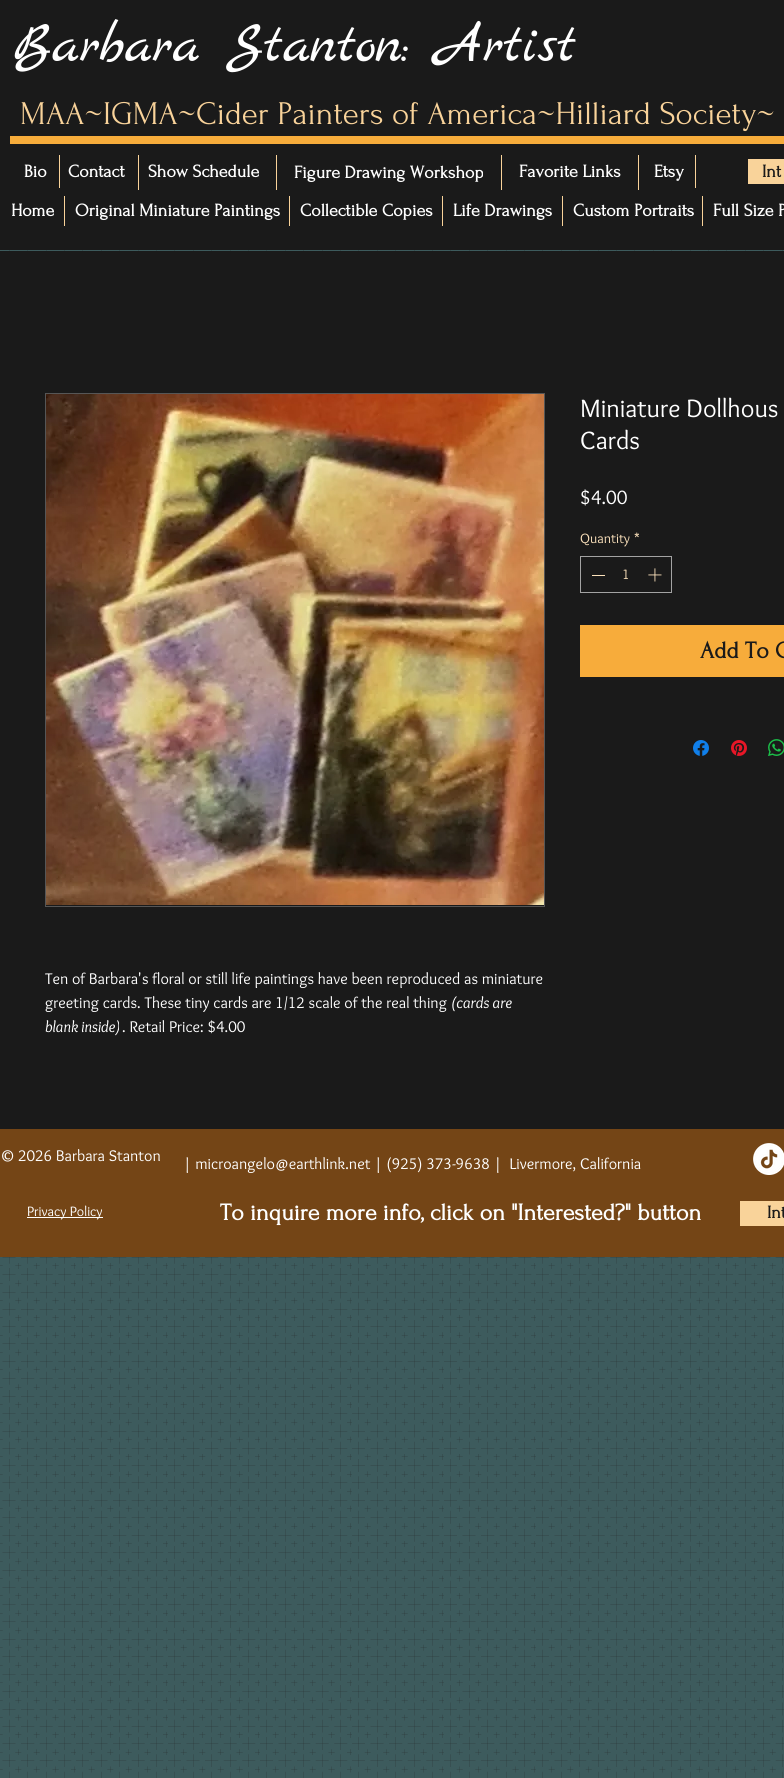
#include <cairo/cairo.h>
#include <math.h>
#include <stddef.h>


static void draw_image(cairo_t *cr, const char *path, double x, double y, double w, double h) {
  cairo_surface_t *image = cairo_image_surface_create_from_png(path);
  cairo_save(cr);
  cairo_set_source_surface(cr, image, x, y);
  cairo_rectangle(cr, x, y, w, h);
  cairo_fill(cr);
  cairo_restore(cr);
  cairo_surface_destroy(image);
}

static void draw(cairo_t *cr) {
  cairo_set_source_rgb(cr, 61 / 255.0, 91 / 255.0, 93 / 255.0);
  cairo_paint(cr);
  cairo_set_source_rgb(cr, 26 / 255.0, 26 / 255.0, 26 / 255.0);
  cairo_rectangle(cr, 0, 0, 784, 250);
  cairo_fill(cr);
  cairo_set_source_rgb(cr, 247 / 255.0, 172 / 255.0, 59 / 255.0);
  cairo_rectangle(cr, 10, 136, 774, 8);
  cairo_fill(cr);
  cairo_set_source_rgb(cr, 249 / 255.0, 211 / 255.0, 154 / 255.0);
  cairo_rectangle(cr, 59, 155, 1, 33);
  cairo_fill(cr);
  cairo_rectangle(cr, 138, 155, 1, 35);
  cairo_fill(cr);
  cairo_rectangle(cr, 276, 155, 1, 35);
  cairo_fill(cr);
  cairo_rectangle(cr, 501, 155, 1, 35);
  cairo_fill(cr);
  cairo_rectangle(cr, 638, 155, 1, 35);
  cairo_fill(cr);
  cairo_rectangle(cr, 695, 155, 1, 33);
  cairo_fill(cr);
  cairo_rectangle(cr, 748, 159, 36, 25);
  cairo_fill(cr);
  cairo_rectangle(cr, 64, 196, 1, 30);
  cairo_fill(cr);
  cairo_rectangle(cr, 289, 196, 1, 30);
  cairo_fill(cr);
  cairo_rectangle(cr, 442, 196, 1, 30);
  cairo_fill(cr);
  cairo_rectangle(cr, 562, 196, 1, 30);
  cairo_fill(cr);
  cairo_rectangle(cr, 702, 196, 1, 30);
  cairo_fill(cr);
  draw_image(cr, "images/7.png", 0, 250, 784, 1528);
  cairo_set_source_rgb(cr, 26 / 255.0, 26 / 255.0, 26 / 255.0);
  cairo_rectangle(cr, 0, 251, 784, 878);
  cairo_fill(cr);
  cairo_rectangle(cr, 580.5, 556.5, 91, 36);
  cairo_set_source_rgb(cr, 163 / 255.0, 163 / 255.0, 163 / 255.0);
  cairo_set_line_width(cr, 1);
  cairo_stroke(cr);
  cairo_set_source_rgb(cr, 252 / 255.0, 226 / 255.0, 188 / 255.0);
  cairo_rectangle(cr, 592, 575, 13, 1);
  cairo_fill(cr);
  draw_image(cr, "images/1.png", 648, 568, 14, 14);
  cairo_set_source_rgb(cr, 247 / 255.0, 172 / 255.0, 59 / 255.0);
  cairo_rectangle(cr, 580, 625, 204, 52);
  cairo_fill(cr);
  draw_image(cr, "images/2.png", 693, 740, 16, 16);
  draw_image(cr, "images/3.png", 731, 740, 16, 16);
  draw_image(cr, "images/4.png", 768, 739, 16, 17);
  cairo_rectangle(cr, 45.5, 393.5, 499, 513);
  cairo_set_source_rgb(cr, 86 / 255.0, 86 / 255.0, 86 / 255.0);
  cairo_stroke(cr);
  draw_image(cr, "images/5.png", 46, 394, 498, 511);
  cairo_set_source_rgb(cr, 116 / 255.0, 69 / 255.0, 22 / 255.0);
  cairo_rectangle(cr, 0, 1129, 784, 128);
  cairo_fill(cr);
  draw_image(cr, "images/6.png", 753, 1143, 31, 32);
  cairo_set_source_rgb(cr, 1, 1, 1);
  cairo_rectangle(cr, 27, 1217, 76, 1);
  cairo_fill(cr);
  cairo_set_source_rgb(cr, 249 / 255.0, 211 / 255.0, 154 / 255.0);
  cairo_rectangle(cr, 740, 1201, 44, 25);
  cairo_fill(cr);
  cairo_select_font_face(cr, "Marck Script", CAIRO_FONT_SLANT_NORMAL, CAIRO_FONT_WEIGHT_NORMAL);
  cairo_set_font_size(cr, 58);
  cairo_set_source_rgb(cr, 1, 1, 1);
  cairo_move_to(cr, 13, 61);
  cairo_show_text(cr, "Barbara Stanton: Artist");
  cairo_select_font_face(cr, "Forum", CAIRO_FONT_SLANT_NORMAL, CAIRO_FONT_WEIGHT_NORMAL);
  cairo_set_font_size(cr, 33);
  cairo_set_source_rgb(cr, 249 / 255.0, 211 / 255.0, 154 / 255.0);
  cairo_move_to(cr, 20, 124);
  cairo_show_text(cr, "MAA~IGMA~Cider Painters of America~Hilliard Society~");
  cairo_select_font_face(cr, "Forum", CAIRO_FONT_SLANT_NORMAL, CAIRO_FONT_WEIGHT_BOLD);
  cairo_set_font_size(cr, 18);
  cairo_set_source_rgb(cr, 1, 1, 1);
  cairo_move_to(cr, 24, 177);
  cairo_show_text(cr, "Bio");
  cairo_move_to(cr, 68, 177);
  cairo_show_text(cr, "Contact");
  cairo_move_to(cr, 148, 177);
  cairo_show_text(cr, "Show Schedule");
  cairo_move_to(cr, 294, 178);
  cairo_show_text(cr, "Figure Drawing Workshop");
  cairo_move_to(cr, 519, 177);
  cairo_show_text(cr, "Favorite Links");
  cairo_move_to(cr, 654, 177);
  cairo_show_text(cr, "Etsy");
  cairo_set_source_rgb(cr, 26 / 255.0, 26 / 255.0, 26 / 255.0);
  cairo_move_to(cr, 762, 177);
  cairo_show_text(cr, "Int");
  cairo_set_source_rgb(cr, 1, 1, 1);
  cairo_move_to(cr, 11, 216);
  cairo_show_text(cr, "Home");
  cairo_move_to(cr, 75, 216);
  cairo_show_text(cr, "Original Miniature Paintings");
  cairo_move_to(cr, 300, 216);
  cairo_show_text(cr, "Collectible Copies");
  cairo_move_to(cr, 453, 216);
  cairo_show_text(cr, "Life Drawings");
  cairo_move_to(cr, 573, 216);
  cairo_show_text(cr, "Custom Portraits");
  cairo_move_to(cr, 713, 216);
  cairo_show_text(cr, "Full Size P");
  cairo_select_font_face(cr, "Overlock", CAIRO_FONT_SLANT_NORMAL, CAIRO_FONT_WEIGHT_NORMAL);
  cairo_set_font_size(cr, 26);
  cairo_move_to(cr, 580, 417);
  cairo_show_text(cr, "Miniature Dollhous");
  cairo_move_to(cr, 580, 449);
  cairo_show_text(cr, "Cards");
  cairo_set_font_size(cr, 20);
  cairo_move_to(cr, 580, 504);
  cairo_show_text(cr, "$4.00");
  cairo_set_font_size(cr, 14);
  cairo_set_source_rgb(cr, 252 / 255.0, 226 / 255.0, 188 / 255.0);
  cairo_move_to(cr, 580, 543);
  cairo_show_text(cr, "Quantity");
  cairo_move_to(cr, 634, 543);
  cairo_show_text(cr, "*");
  cairo_move_to(cr, 622, 579);
  cairo_show_text(cr, "1");
  cairo_select_font_face(cr, "Forum", CAIRO_FONT_SLANT_NORMAL, CAIRO_FONT_WEIGHT_BOLD);
  cairo_set_font_size(cr, 24);
  cairo_set_source_rgb(cr, 26 / 255.0, 26 / 255.0, 26 / 255.0);
  cairo_move_to(cr, 700, 658);
  cairo_show_text(cr, "Add To C");
  cairo_select_font_face(cr, "Overlock", CAIRO_FONT_SLANT_NORMAL, CAIRO_FONT_WEIGHT_NORMAL);
  cairo_set_font_size(cr, 16);
  cairo_set_source_rgb(cr, 1, 1, 1);
  cairo_move_to(cr, 45, 984);
  cairo_show_text(cr, "Ten of Barbara's floral or still life paintings have been reproduced as miniature");
  cairo_move_to(cr, 45, 1008);
  cairo_show_text(cr, "greeting cards. These tiny cards are 1/12 scale of the real thing");
  cairo_select_font_face(cr, "Overlock", CAIRO_FONT_SLANT_ITALIC, CAIRO_FONT_WEIGHT_NORMAL);
  cairo_move_to(cr, 451, 1008);
  cairo_show_text(cr, "(cards are");
  cairo_move_to(cr, 45, 1032);
  cairo_show_text(cr, "blank inside)");
  cairo_select_font_face(cr, "Overlock", CAIRO_FONT_SLANT_NORMAL, CAIRO_FONT_WEIGHT_NORMAL);
  cairo_move_to(cr, 122, 1032);
  cairo_show_text(cr, ". Retail Price: $4.00");
  cairo_move_to(cr, 0, 1161);
  cairo_show_text(cr, "© 2026 Barbara Stanton");
  cairo_move_to(cr, 183, 1169);
  cairo_show_text(cr, "| microangelo@earthlink.net | (925) 373-9638 |  Livermore, California");
  cairo_set_font_size(cr, 14);
  cairo_move_to(cr, 27, 1216);
  cairo_show_text(cr, "Privacy Policy");
  cairo_select_font_face(cr, "Forum", CAIRO_FONT_SLANT_NORMAL, CAIRO_FONT_WEIGHT_BOLD);
  cairo_set_font_size(cr, 24);
  cairo_move_to(cr, 220, 1220);
  cairo_show_text(cr, "To inquire more info, click on \"Interested?\" button");
  cairo_set_font_size(cr, 18);
  cairo_set_source_rgb(cr, 26 / 255.0, 26 / 255.0, 26 / 255.0);
  cairo_move_to(cr, 767, 1218);
  cairo_show_text(cr, "Int");
}

int main(void) {
  cairo_surface_t *surface = cairo_image_surface_create(CAIRO_FORMAT_RGB24, 784, 1778);
  cairo_t *cr = cairo_create(surface);
  cairo_font_options_t *options = cairo_font_options_create();
  cairo_font_options_set_hint_metrics(options, CAIRO_HINT_METRICS_OFF);
  cairo_font_options_set_hint_style(options, CAIRO_HINT_STYLE_NONE);
  cairo_set_font_options(cr, options);
  cairo_set_miter_limit(cr, 4);
  draw(cr);
  cairo_surface_write_to_png(surface, "out.png");
  cairo_font_options_destroy(options);
  cairo_destroy(cr);
  cairo_surface_destroy(surface);
  return 0;
}
